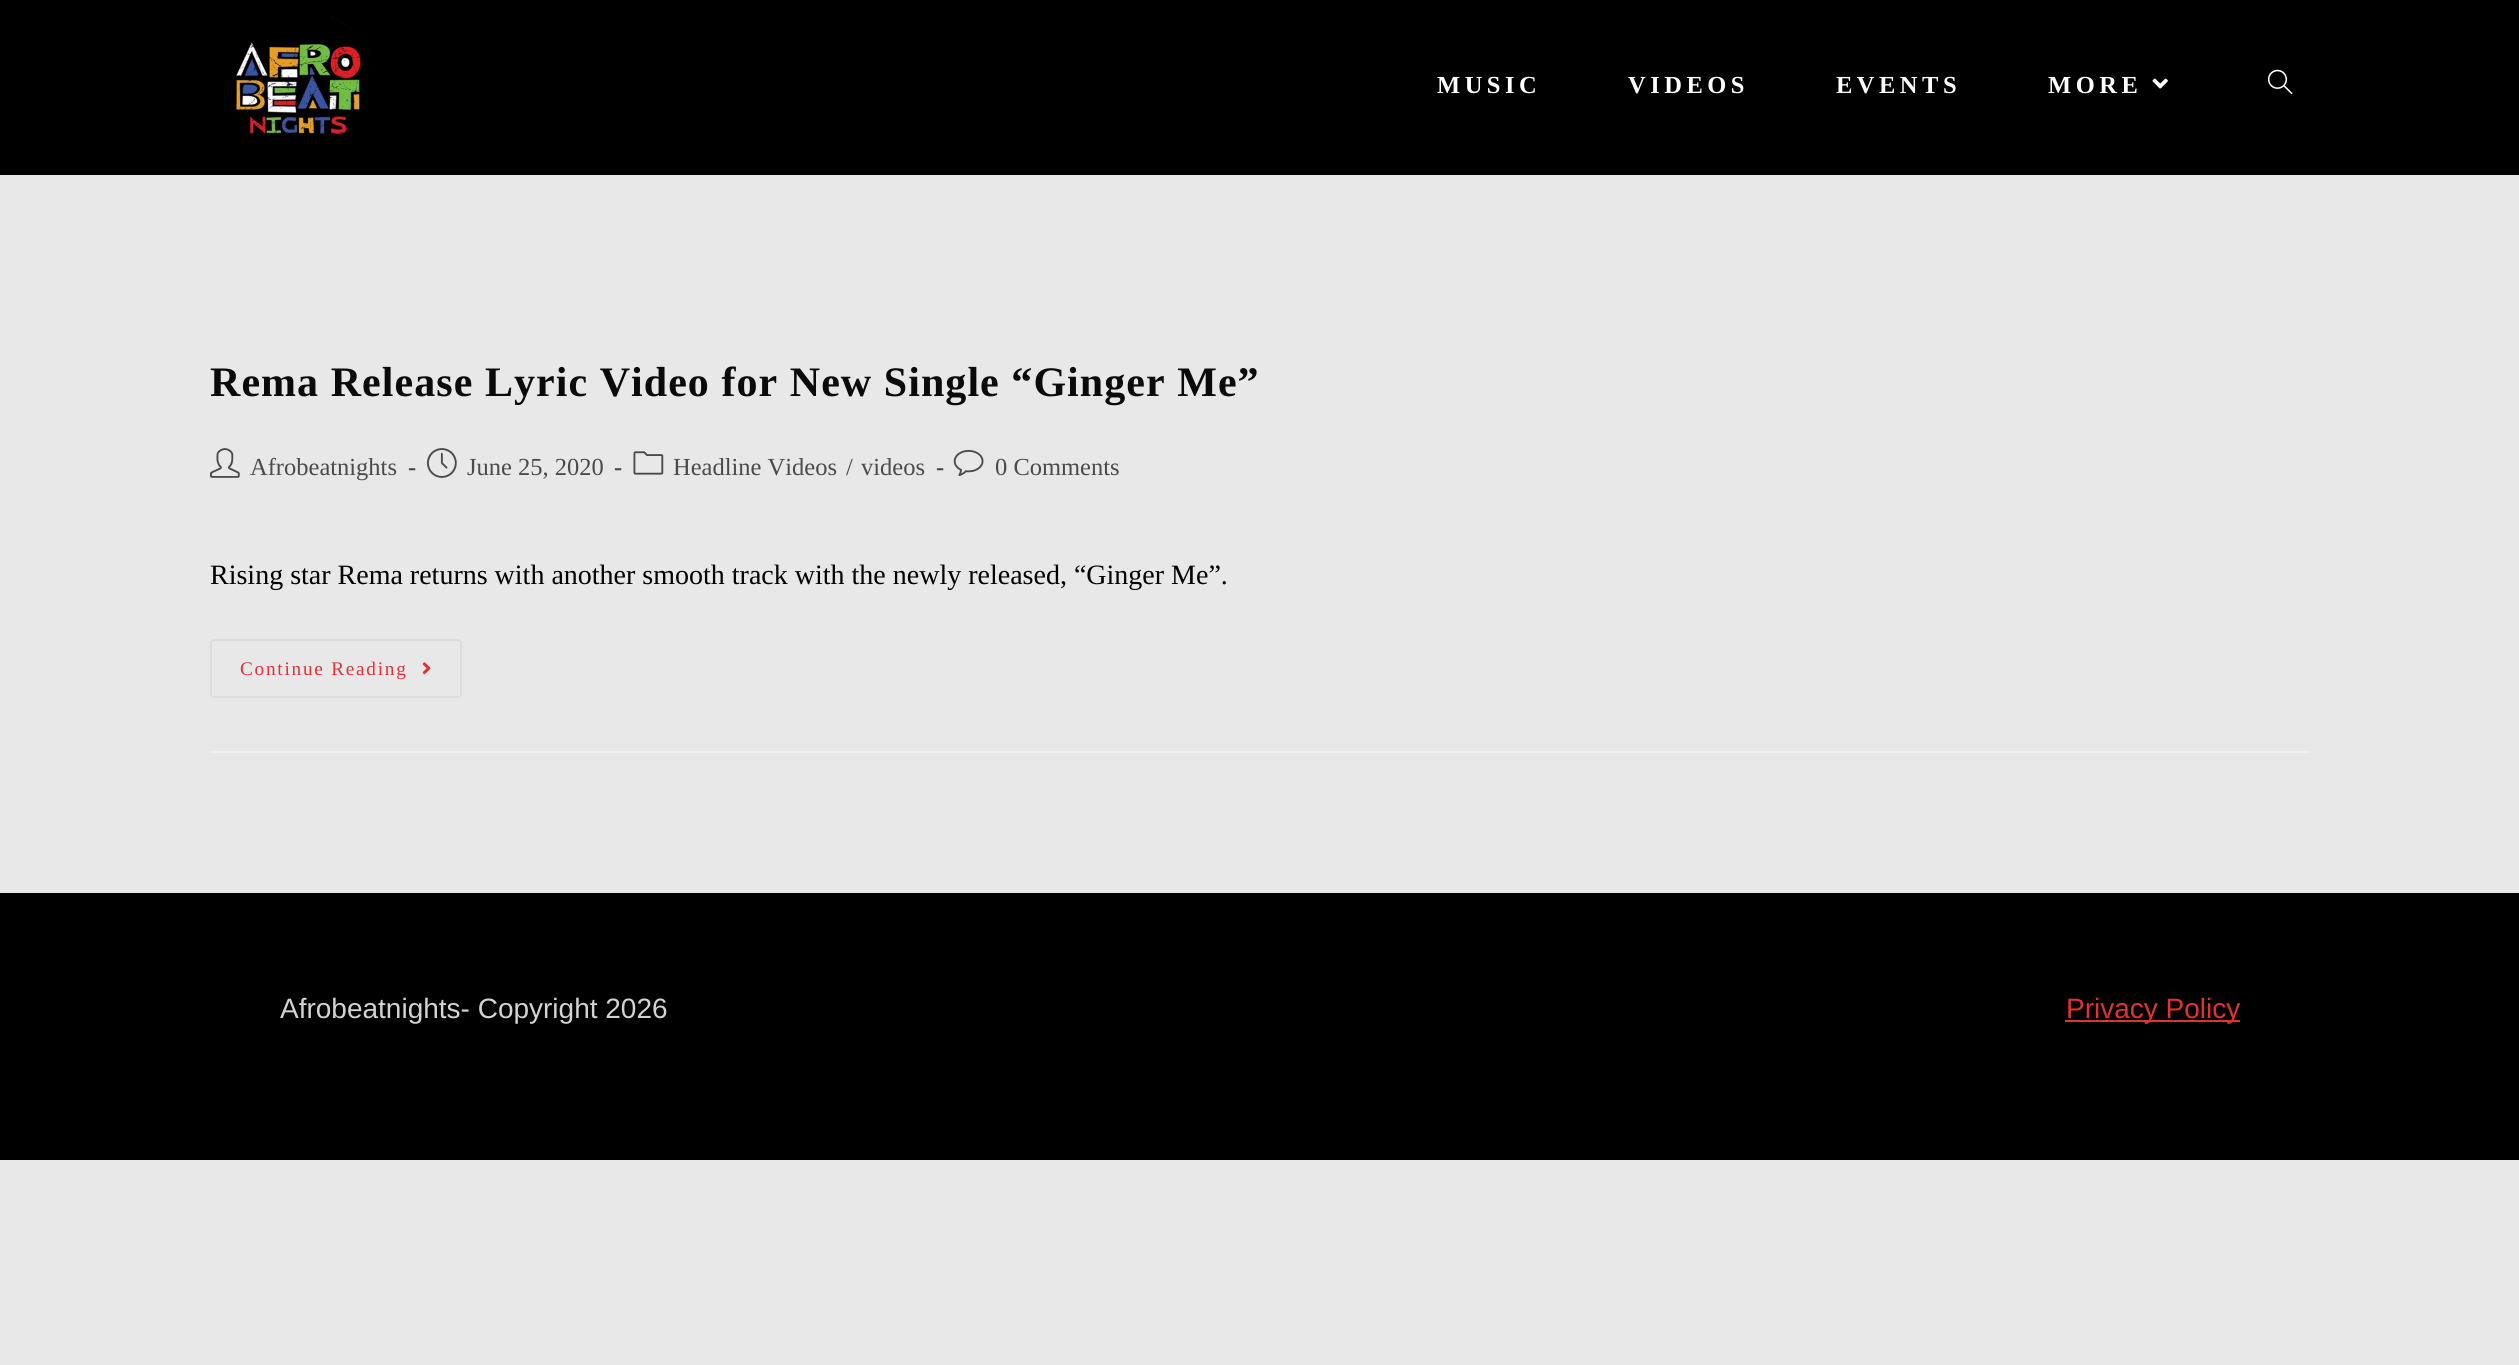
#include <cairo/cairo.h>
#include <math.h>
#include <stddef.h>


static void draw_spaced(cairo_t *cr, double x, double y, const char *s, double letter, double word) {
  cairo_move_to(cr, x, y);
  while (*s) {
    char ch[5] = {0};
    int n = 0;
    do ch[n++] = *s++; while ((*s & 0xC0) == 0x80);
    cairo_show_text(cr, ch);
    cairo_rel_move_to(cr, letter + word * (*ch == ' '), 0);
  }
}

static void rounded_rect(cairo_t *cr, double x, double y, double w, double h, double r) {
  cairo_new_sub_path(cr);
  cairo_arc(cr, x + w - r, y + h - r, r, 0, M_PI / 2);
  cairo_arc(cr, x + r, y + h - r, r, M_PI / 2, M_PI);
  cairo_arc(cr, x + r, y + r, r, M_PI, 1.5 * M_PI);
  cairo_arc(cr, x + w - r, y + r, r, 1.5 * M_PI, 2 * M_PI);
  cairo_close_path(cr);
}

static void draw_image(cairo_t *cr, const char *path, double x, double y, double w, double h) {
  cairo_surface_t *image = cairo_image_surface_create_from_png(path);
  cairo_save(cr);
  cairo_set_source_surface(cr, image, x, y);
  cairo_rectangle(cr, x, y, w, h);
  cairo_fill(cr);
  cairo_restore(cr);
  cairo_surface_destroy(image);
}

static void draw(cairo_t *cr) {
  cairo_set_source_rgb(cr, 232 / 255.0, 232 / 255.0, 232 / 255.0);
  cairo_paint(cr);
  cairo_set_source_rgb(cr, 0, 0, 0);
  cairo_rectangle(cr, 0, 0, 2519, 175);
  cairo_fill(cr);
  draw_image(cr, "images/1.png", 235, 15, 141, 122);
  draw_image(cr, "images/2.png", 2152, 78, 16, 11);
  draw_image(cr, "images/3.png", 2267, 69, 26, 26);
  cairo_set_source_rgb(cr, 241 / 255.0, 241 / 255.0, 241 / 255.0);
  cairo_rectangle(cr, 210, 751, 2100, 2);
  cairo_fill(cr);
  draw_image(cr, "images/4.png", 210, 448, 30, 30);
  draw_image(cr, "images/5.png", 427, 448, 30, 30);
  draw_image(cr, "images/6.png", 633, 451, 31, 24);
  draw_image(cr, "images/7.png", 953, 450, 31, 26);
  rounded_rect(cr, 211, 640, 250, 57, 3);
  cairo_set_source_rgb(cr, 221 / 255.0, 221 / 255.0, 221 / 255.0);
  cairo_stroke(cr);
  draw_image(cr, "images/8.png", 422, 662, 9, 13);
  cairo_set_source_rgb(cr, 0, 0, 0);
  cairo_rectangle(cr, 0, 893, 2519, 267);
  cairo_fill(cr);
  cairo_set_source_rgb(cr, 221 / 255.0, 51 / 255.0, 51 / 255.0);
  cairo_rectangle(cr, 2065, 1020, 175, 2);
  cairo_fill(cr);
  cairo_select_font_face(cr, "Liberation Serif", CAIRO_FONT_SLANT_NORMAL, CAIRO_FONT_WEIGHT_BOLD);
  cairo_set_font_size(cr, 24.5);
  cairo_set_source_rgb(cr, 1, 1, 1);
  draw_spaced(cr, 1437, 93, "MUSIC", 4.5, 0);
  draw_spaced(cr, 1628, 93, "VIDEOS", 4.5, 0);
  draw_spaced(cr, 1836, 93, "EVENTS", 4.5, 0);
  draw_spaced(cr, 2048, 93, "MORE", 4.5, 0);
  cairo_set_font_size(cr, 42);
  cairo_set_source_rgb(cr, 10 / 255.0, 10 / 255.0, 10 / 255.0);
  draw_spaced(cr, 210, 396, "Rema Release Lyric Video for New Single “Ginger Me”", 1.05, 0);
  cairo_select_font_face(cr, "Liberation Serif", CAIRO_FONT_SLANT_NORMAL, CAIRO_FONT_WEIGHT_NORMAL);
  cairo_set_font_size(cr, 24.5);
  cairo_set_source_rgb(cr, 74 / 255.0, 74 / 255.0, 74 / 255.0);
  cairo_move_to(cr, 250, 475);
  cairo_show_text(cr, "Afrobeatnights");
  cairo_select_font_face(cr, "Liberation Serif", CAIRO_FONT_SLANT_NORMAL, CAIRO_FONT_WEIGHT_BOLD);
  cairo_move_to(cr, 408, 475);
  cairo_show_text(cr, "-");
  cairo_select_font_face(cr, "Liberation Serif", CAIRO_FONT_SLANT_NORMAL, CAIRO_FONT_WEIGHT_NORMAL);
  cairo_move_to(cr, 467, 475);
  cairo_show_text(cr, "June 25, 2020");
  cairo_select_font_face(cr, "Liberation Serif", CAIRO_FONT_SLANT_NORMAL, CAIRO_FONT_WEIGHT_BOLD);
  cairo_move_to(cr, 614, 475);
  cairo_show_text(cr, "-");
  cairo_select_font_face(cr, "Liberation Serif", CAIRO_FONT_SLANT_NORMAL, CAIRO_FONT_WEIGHT_NORMAL);
  cairo_move_to(cr, 673, 475);
  cairo_show_text(cr, "Headline Videos");
  cairo_move_to(cr, 846, 475);
  cairo_show_text(cr, "/");
  cairo_move_to(cr, 861, 475);
  cairo_show_text(cr, "videos");
  cairo_select_font_face(cr, "Liberation Serif", CAIRO_FONT_SLANT_NORMAL, CAIRO_FONT_WEIGHT_BOLD);
  cairo_move_to(cr, 936, 475);
  cairo_show_text(cr, "-");
  cairo_select_font_face(cr, "Liberation Serif", CAIRO_FONT_SLANT_NORMAL, CAIRO_FONT_WEIGHT_NORMAL);
  cairo_move_to(cr, 995, 475);
  cairo_show_text(cr, "0 Comments");
  cairo_set_font_size(cr, 28);
  cairo_set_source_rgb(cr, 0, 0, 0);
  cairo_move_to(cr, 210, 584);
  cairo_show_text(cr, "Rising star Rema returns with another smooth track with the newly released, “Ginger Me”.");
  cairo_set_font_size(cr, 19.25);
  cairo_set_source_rgb(cr, 221 / 255.0, 51 / 255.0, 51 / 255.0);
  draw_spaced(cr, 240, 675, "Continue Reading", 1.75, 0);
  cairo_select_font_face(cr, "Liberation Sans", CAIRO_FONT_SLANT_NORMAL, CAIRO_FONT_WEIGHT_NORMAL);
  cairo_set_font_size(cr, 28);
  cairo_set_source_rgb(cr, 211 / 255.0, 211 / 255.0, 211 / 255.0);
  cairo_move_to(cr, 280, 1018);
  cairo_show_text(cr, "Afrobeatnights- Copyright 2026");
  cairo_set_source_rgb(cr, 221 / 255.0, 51 / 255.0, 51 / 255.0);
  cairo_move_to(cr, 2066, 1018);
  cairo_show_text(cr, "Privacy Policy");
}

int main(void) {
  cairo_surface_t *surface = cairo_image_surface_create(CAIRO_FORMAT_RGB24, 2519, 1365);
  cairo_t *cr = cairo_create(surface);
  cairo_font_options_t *options = cairo_font_options_create();
  cairo_font_options_set_hint_metrics(options, CAIRO_HINT_METRICS_OFF);
  cairo_font_options_set_hint_style(options, CAIRO_HINT_STYLE_NONE);
  cairo_set_font_options(cr, options);
  cairo_set_miter_limit(cr, 4);
  draw(cr);
  cairo_surface_write_to_png(surface, "out.png");
  cairo_font_options_destroy(options);
  cairo_destroy(cr);
  cairo_surface_destroy(surface);
  return 0;
}
